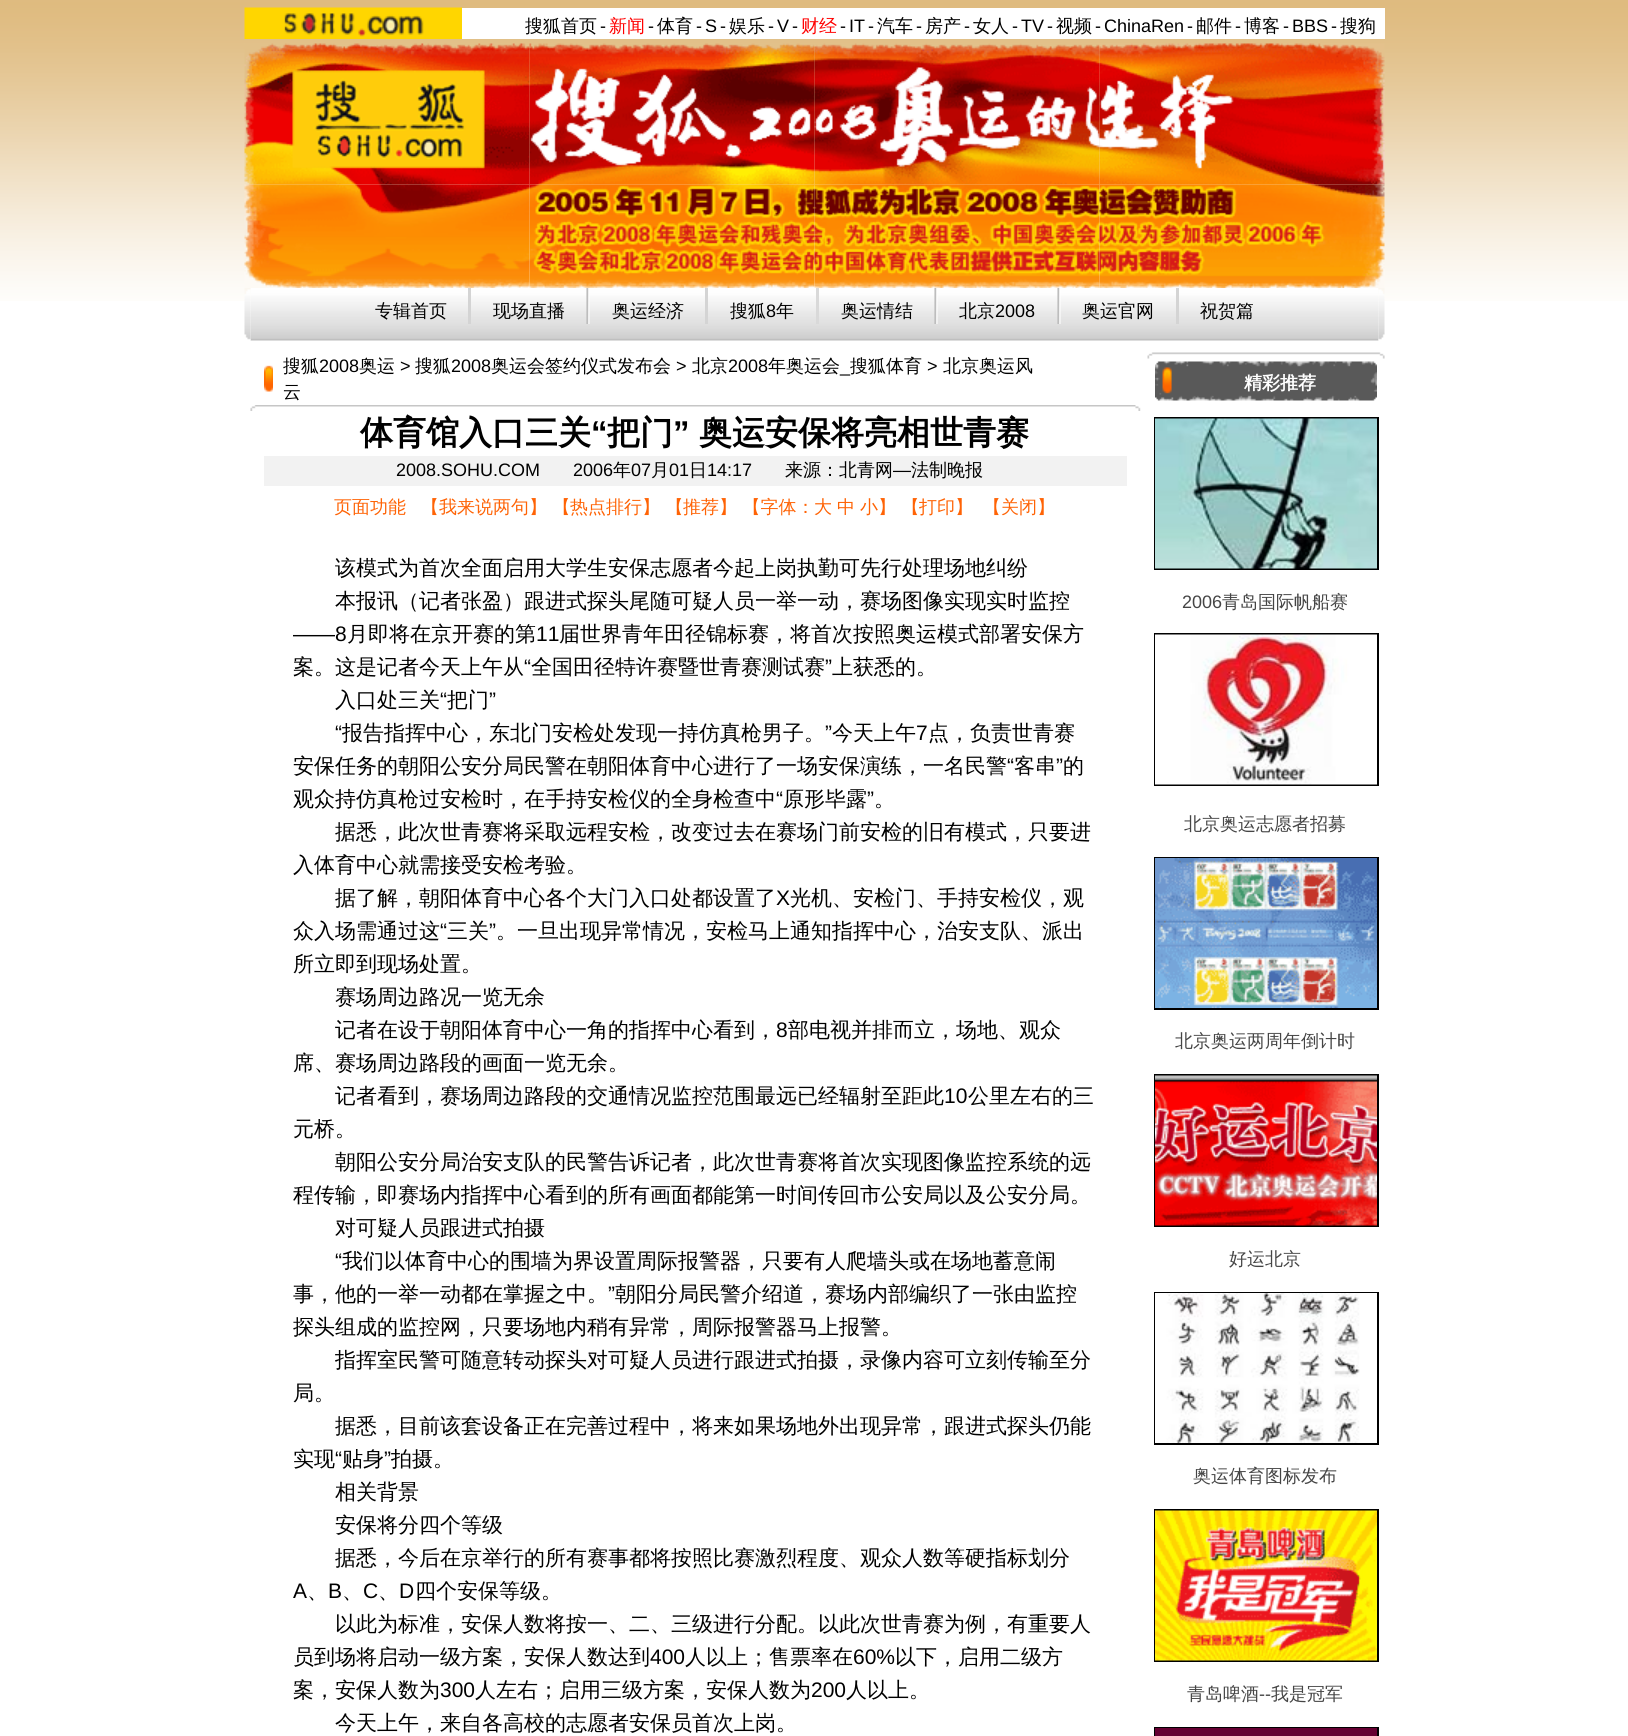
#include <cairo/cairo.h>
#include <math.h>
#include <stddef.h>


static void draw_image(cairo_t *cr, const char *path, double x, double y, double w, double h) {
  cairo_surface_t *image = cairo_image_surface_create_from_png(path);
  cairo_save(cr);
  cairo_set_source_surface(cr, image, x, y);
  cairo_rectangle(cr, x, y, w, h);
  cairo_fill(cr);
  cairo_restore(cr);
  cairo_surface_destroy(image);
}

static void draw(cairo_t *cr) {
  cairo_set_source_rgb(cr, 1, 1, 1);
  cairo_paint(cr);
  draw_image(cr, "images/1.png", 0, 0, 1628, 301);
  cairo_set_source_rgb(cr, 1, 1, 1);
  cairo_rectangle(cr, 462, 8, 923, 31);
  cairo_fill(cr);
  draw_image(cr, "images/2.png", 244, 7, 218, 32);
  draw_image(cr, "images/3.png", 244, 43, 286, 142);
  draw_image(cr, "images/4.png", 529, 43, 286, 142);
  draw_image(cr, "images/5.png", 814, 43, 286, 142);
  draw_image(cr, "images/6.png", 1099, 43, 286, 142);
  draw_image(cr, "images/7.png", 244, 184, 286, 104);
  draw_image(cr, "images/8.png", 529, 184, 286, 104);
  draw_image(cr, "images/9.png", 814, 184, 286, 104);
  draw_image(cr, "images/10.png", 1099, 184, 286, 104);
  draw_image(cr, "images/12.png", 250, 288, 1129, 53);
  draw_image(cr, "images/11.png", 244, 288, 7, 53);
  cairo_set_source_rgb(cr, 212 / 255.0, 212 / 255.0, 212 / 255.0);
  cairo_rectangle(cr, 468, 288, 3, 36);
  cairo_fill(cr);
  draw_image(cr, "images/13.png", 586, 288, 4, 36);
  cairo_rectangle(cr, 705, 288, 3, 36);
  cairo_fill(cr);
  cairo_set_source_rgb(cr, 217 / 255.0, 217 / 255.0, 217 / 255.0);
  cairo_rectangle(cr, 816, 288, 3, 36);
  cairo_fill(cr);
  draw_image(cr, "images/13.png", 934, 288, 4, 36);
  draw_image(cr, "images/13.png", 1057, 288, 4, 36);
  cairo_set_source_rgb(cr, 212 / 255.0, 212 / 255.0, 212 / 255.0);
  cairo_rectangle(cr, 1176, 288, 3, 36);
  cairo_fill(cr);
  draw_image(cr, "images/14.png", 1378, 288, 7, 53);
  draw_image(cr, "images/15.png", 264, 365, 9, 27);
  draw_image(cr, "images/16.png", 250, 405, 891, 6);
  cairo_set_source_rgb(cr, 242 / 255.0, 242 / 255.0, 242 / 255.0);
  cairo_rectangle(cr, 264, 456, 863, 30);
  cairo_fill(cr);
  draw_image(cr, "images/17.png", 1147, 352, 238, 7);
  draw_image(cr, "images/18.png", 1155, 361, 222, 40);
  cairo_rectangle(cr, 1155, 418, 223, 151);
  cairo_set_source_rgb(cr, 0, 0, 0);
  cairo_stroke(cr);
  draw_image(cr, "images/19.png", 1155, 418, 222, 151);
  cairo_rectangle(cr, 1155, 634, 223, 151);
  cairo_stroke(cr);
  draw_image(cr, "images/20.png", 1155, 634, 222, 151);
  cairo_rectangle(cr, 1155, 858, 223, 151);
  cairo_stroke(cr);
  draw_image(cr, "images/21.png", 1155, 858, 222, 150);
  cairo_rectangle(cr, 1155, 1075, 223, 151);
  cairo_stroke(cr);
  draw_image(cr, "images/22.png", 1155, 1075, 222, 151);
  cairo_rectangle(cr, 1155, 1293, 223, 151);
  cairo_stroke(cr);
  draw_image(cr, "images/23.png", 1155, 1293, 222, 150);
  cairo_rectangle(cr, 1155, 1510, 223, 151);
  cairo_stroke(cr);
  draw_image(cr, "images/24.png", 1155, 1510, 222, 151);
  cairo_rectangle(cr, 1155, 1728, 223, 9);
  cairo_stroke(cr);
  cairo_set_source_rgb(cr, 102 / 255.0, 0, 50 / 255.0);
  cairo_rectangle(cr, 1155, 1728, 222, 8);
  cairo_fill(cr);
  cairo_select_font_face(cr, "WenQuanYi Zen Hei Medium", CAIRO_FONT_SLANT_NORMAL, CAIRO_FONT_WEIGHT_NORMAL);
  cairo_set_font_size(cr, 18);
  cairo_set_source_rgb(cr, 0, 0, 0);
  cairo_move_to(cr, 525, 32);
  cairo_show_text(cr, "搜狐首页");
  cairo_select_font_face(cr, "Liberation Sans", CAIRO_FONT_SLANT_NORMAL, CAIRO_FONT_WEIGHT_NORMAL);
  cairo_move_to(cr, 600, 32);
  cairo_show_text(cr, "-");
  cairo_select_font_face(cr, "WenQuanYi Zen Hei Medium", CAIRO_FONT_SLANT_NORMAL, CAIRO_FONT_WEIGHT_NORMAL);
  cairo_set_source_rgb(cr, 1, 0, 0);
  cairo_move_to(cr, 609, 32);
  cairo_show_text(cr, "新闻");
  cairo_select_font_face(cr, "Liberation Sans", CAIRO_FONT_SLANT_NORMAL, CAIRO_FONT_WEIGHT_NORMAL);
  cairo_set_source_rgb(cr, 0, 0, 0);
  cairo_move_to(cr, 648, 32);
  cairo_show_text(cr, "-");
  cairo_select_font_face(cr, "WenQuanYi Zen Hei Medium", CAIRO_FONT_SLANT_NORMAL, CAIRO_FONT_WEIGHT_NORMAL);
  cairo_move_to(cr, 657, 32);
  cairo_show_text(cr, "体育");
  cairo_select_font_face(cr, "Liberation Sans", CAIRO_FONT_SLANT_NORMAL, CAIRO_FONT_WEIGHT_NORMAL);
  cairo_move_to(cr, 696, 32);
  cairo_show_text(cr, "-");
  cairo_move_to(cr, 705, 32);
  cairo_show_text(cr, "S");
  cairo_move_to(cr, 720, 32);
  cairo_show_text(cr, "-");
  cairo_select_font_face(cr, "WenQuanYi Zen Hei Medium", CAIRO_FONT_SLANT_NORMAL, CAIRO_FONT_WEIGHT_NORMAL);
  cairo_move_to(cr, 729, 32);
  cairo_show_text(cr, "娱乐");
  cairo_select_font_face(cr, "Liberation Sans", CAIRO_FONT_SLANT_NORMAL, CAIRO_FONT_WEIGHT_NORMAL);
  cairo_move_to(cr, 768, 32);
  cairo_show_text(cr, "-");
  cairo_move_to(cr, 777, 32);
  cairo_show_text(cr, "V");
  cairo_move_to(cr, 792, 32);
  cairo_show_text(cr, "-");
  cairo_select_font_face(cr, "WenQuanYi Zen Hei Medium", CAIRO_FONT_SLANT_NORMAL, CAIRO_FONT_WEIGHT_NORMAL);
  cairo_set_source_rgb(cr, 1, 0, 0);
  cairo_move_to(cr, 801, 32);
  cairo_show_text(cr, "财经");
  cairo_select_font_face(cr, "Liberation Sans", CAIRO_FONT_SLANT_NORMAL, CAIRO_FONT_WEIGHT_NORMAL);
  cairo_set_source_rgb(cr, 0, 0, 0);
  cairo_move_to(cr, 840, 32);
  cairo_show_text(cr, "-");
  cairo_move_to(cr, 849, 32);
  cairo_show_text(cr, "IT");
  cairo_move_to(cr, 868, 32);
  cairo_show_text(cr, "-");
  cairo_select_font_face(cr, "WenQuanYi Zen Hei Medium", CAIRO_FONT_SLANT_NORMAL, CAIRO_FONT_WEIGHT_NORMAL);
  cairo_move_to(cr, 877, 32);
  cairo_show_text(cr, "汽车");
  cairo_select_font_face(cr, "Liberation Sans", CAIRO_FONT_SLANT_NORMAL, CAIRO_FONT_WEIGHT_NORMAL);
  cairo_move_to(cr, 916, 32);
  cairo_show_text(cr, "-");
  cairo_select_font_face(cr, "WenQuanYi Zen Hei Medium", CAIRO_FONT_SLANT_NORMAL, CAIRO_FONT_WEIGHT_NORMAL);
  cairo_move_to(cr, 925, 32);
  cairo_show_text(cr, "房产");
  cairo_select_font_face(cr, "Liberation Sans", CAIRO_FONT_SLANT_NORMAL, CAIRO_FONT_WEIGHT_NORMAL);
  cairo_move_to(cr, 964, 32);
  cairo_show_text(cr, "-");
  cairo_select_font_face(cr, "WenQuanYi Zen Hei Medium", CAIRO_FONT_SLANT_NORMAL, CAIRO_FONT_WEIGHT_NORMAL);
  cairo_move_to(cr, 973, 32);
  cairo_show_text(cr, "女人");
  cairo_select_font_face(cr, "Liberation Sans", CAIRO_FONT_SLANT_NORMAL, CAIRO_FONT_WEIGHT_NORMAL);
  cairo_move_to(cr, 1012, 32);
  cairo_show_text(cr, "-");
  cairo_move_to(cr, 1021, 32);
  cairo_show_text(cr, "TV");
  cairo_move_to(cr, 1047, 32);
  cairo_show_text(cr, "-");
  cairo_select_font_face(cr, "WenQuanYi Zen Hei Medium", CAIRO_FONT_SLANT_NORMAL, CAIRO_FONT_WEIGHT_NORMAL);
  cairo_move_to(cr, 1056, 32);
  cairo_show_text(cr, "视频");
  cairo_select_font_face(cr, "Liberation Sans", CAIRO_FONT_SLANT_NORMAL, CAIRO_FONT_WEIGHT_NORMAL);
  cairo_move_to(cr, 1095, 32);
  cairo_show_text(cr, "-");
  cairo_move_to(cr, 1104, 32);
  cairo_show_text(cr, "ChinaRen");
  cairo_move_to(cr, 1187, 32);
  cairo_show_text(cr, "-");
  cairo_select_font_face(cr, "WenQuanYi Zen Hei Medium", CAIRO_FONT_SLANT_NORMAL, CAIRO_FONT_WEIGHT_NORMAL);
  cairo_move_to(cr, 1196, 32);
  cairo_show_text(cr, "邮件");
  cairo_select_font_face(cr, "Liberation Sans", CAIRO_FONT_SLANT_NORMAL, CAIRO_FONT_WEIGHT_NORMAL);
  cairo_move_to(cr, 1235, 32);
  cairo_show_text(cr, "-");
  cairo_select_font_face(cr, "WenQuanYi Zen Hei Medium", CAIRO_FONT_SLANT_NORMAL, CAIRO_FONT_WEIGHT_NORMAL);
  cairo_move_to(cr, 1244, 32);
  cairo_show_text(cr, "博客");
  cairo_select_font_face(cr, "Liberation Sans", CAIRO_FONT_SLANT_NORMAL, CAIRO_FONT_WEIGHT_NORMAL);
  cairo_move_to(cr, 1283, 32);
  cairo_show_text(cr, "-");
  cairo_move_to(cr, 1292, 32);
  cairo_show_text(cr, "BBS");
  cairo_move_to(cr, 1331, 32);
  cairo_show_text(cr, "-");
  cairo_select_font_face(cr, "WenQuanYi Zen Hei Medium", CAIRO_FONT_SLANT_NORMAL, CAIRO_FONT_WEIGHT_NORMAL);
  cairo_move_to(cr, 1340, 32);
  cairo_show_text(cr, "搜狗");
  cairo_move_to(cr, 375, 317);
  cairo_show_text(cr, "专辑首页");
  cairo_move_to(cr, 493, 317);
  cairo_show_text(cr, "现场直播");
  cairo_move_to(cr, 612, 317);
  cairo_show_text(cr, "奥运经济");
  cairo_move_to(cr, 730, 317);
  cairo_show_text(cr, "搜狐");
  cairo_select_font_face(cr, "Liberation Sans", CAIRO_FONT_SLANT_NORMAL, CAIRO_FONT_WEIGHT_NORMAL);
  cairo_move_to(cr, 766, 317);
  cairo_show_text(cr, "8");
  cairo_select_font_face(cr, "WenQuanYi Zen Hei Medium", CAIRO_FONT_SLANT_NORMAL, CAIRO_FONT_WEIGHT_NORMAL);
  cairo_move_to(cr, 776, 317);
  cairo_show_text(cr, "年");
  cairo_move_to(cr, 841, 317);
  cairo_show_text(cr, "奥运情结");
  cairo_move_to(cr, 959, 317);
  cairo_show_text(cr, "北京");
  cairo_select_font_face(cr, "Liberation Sans", CAIRO_FONT_SLANT_NORMAL, CAIRO_FONT_WEIGHT_NORMAL);
  cairo_move_to(cr, 995, 317);
  cairo_show_text(cr, "2008");
  cairo_select_font_face(cr, "WenQuanYi Zen Hei Medium", CAIRO_FONT_SLANT_NORMAL, CAIRO_FONT_WEIGHT_NORMAL);
  cairo_move_to(cr, 1082, 317);
  cairo_show_text(cr, "奥运官网");
  cairo_move_to(cr, 1200, 317);
  cairo_show_text(cr, "祝贺篇");
  cairo_move_to(cr, 283, 372);
  cairo_show_text(cr, "搜狐");
  cairo_select_font_face(cr, "Liberation Sans", CAIRO_FONT_SLANT_NORMAL, CAIRO_FONT_WEIGHT_NORMAL);
  cairo_move_to(cr, 319, 372);
  cairo_show_text(cr, "2008");
  cairo_select_font_face(cr, "WenQuanYi Zen Hei Medium", CAIRO_FONT_SLANT_NORMAL, CAIRO_FONT_WEIGHT_NORMAL);
  cairo_move_to(cr, 359, 372);
  cairo_show_text(cr, "奥运");
  cairo_select_font_face(cr, "Liberation Sans", CAIRO_FONT_SLANT_NORMAL, CAIRO_FONT_WEIGHT_NORMAL);
  cairo_move_to(cr, 400, 372);
  cairo_show_text(cr, ">");
  cairo_select_font_face(cr, "WenQuanYi Zen Hei Medium", CAIRO_FONT_SLANT_NORMAL, CAIRO_FONT_WEIGHT_NORMAL);
  cairo_move_to(cr, 415, 372);
  cairo_show_text(cr, "搜狐");
  cairo_select_font_face(cr, "Liberation Sans", CAIRO_FONT_SLANT_NORMAL, CAIRO_FONT_WEIGHT_NORMAL);
  cairo_move_to(cr, 451, 372);
  cairo_show_text(cr, "2008");
  cairo_select_font_face(cr, "WenQuanYi Zen Hei Medium", CAIRO_FONT_SLANT_NORMAL, CAIRO_FONT_WEIGHT_NORMAL);
  cairo_move_to(cr, 491, 372);
  cairo_show_text(cr, "奥运会签约仪式发布会");
  cairo_select_font_face(cr, "Liberation Sans", CAIRO_FONT_SLANT_NORMAL, CAIRO_FONT_WEIGHT_NORMAL);
  cairo_move_to(cr, 676, 372);
  cairo_show_text(cr, ">");
  cairo_select_font_face(cr, "WenQuanYi Zen Hei Medium", CAIRO_FONT_SLANT_NORMAL, CAIRO_FONT_WEIGHT_NORMAL);
  cairo_move_to(cr, 692, 372);
  cairo_show_text(cr, "北京");
  cairo_select_font_face(cr, "Liberation Sans", CAIRO_FONT_SLANT_NORMAL, CAIRO_FONT_WEIGHT_NORMAL);
  cairo_move_to(cr, 728, 372);
  cairo_show_text(cr, "2008");
  cairo_select_font_face(cr, "WenQuanYi Zen Hei Medium", CAIRO_FONT_SLANT_NORMAL, CAIRO_FONT_WEIGHT_NORMAL);
  cairo_move_to(cr, 768, 372);
  cairo_show_text(cr, "年奥运会");
  cairo_select_font_face(cr, "Liberation Sans", CAIRO_FONT_SLANT_NORMAL, CAIRO_FONT_WEIGHT_NORMAL);
  cairo_move_to(cr, 927, 372);
  cairo_show_text(cr, ">");
  cairo_select_font_face(cr, "WenQuanYi Zen Hei Medium", CAIRO_FONT_SLANT_NORMAL, CAIRO_FONT_WEIGHT_NORMAL);
  cairo_move_to(cr, 943, 372);
  cairo_show_text(cr, "北京奥运风");
  cairo_select_font_face(cr, "Liberation Sans", CAIRO_FONT_SLANT_NORMAL, CAIRO_FONT_WEIGHT_NORMAL);
  cairo_move_to(cr, 840, 372);
  cairo_show_text(cr, "_");
  cairo_select_font_face(cr, "WenQuanYi Zen Hei Medium", CAIRO_FONT_SLANT_NORMAL, CAIRO_FONT_WEIGHT_NORMAL);
  cairo_move_to(cr, 850, 372);
  cairo_show_text(cr, "搜狐体育");
  cairo_move_to(cr, 283, 398);
  cairo_show_text(cr, "云");
  cairo_select_font_face(cr, "WenQuanYi Zen Hei", CAIRO_FONT_SLANT_NORMAL, CAIRO_FONT_WEIGHT_BOLD);
  cairo_set_font_size(cr, 33);
  cairo_move_to(cr, 360, 444);
  cairo_show_text(cr, "体育馆入口三关");
  cairo_select_font_face(cr, "Liberation Sans", CAIRO_FONT_SLANT_NORMAL, CAIRO_FONT_WEIGHT_BOLD);
  cairo_move_to(cr, 591, 444);
  cairo_show_text(cr, "“");
  cairo_select_font_face(cr, "WenQuanYi Zen Hei", CAIRO_FONT_SLANT_NORMAL, CAIRO_FONT_WEIGHT_BOLD);
  cairo_move_to(cr, 607, 444);
  cairo_show_text(cr, "把门");
  cairo_select_font_face(cr, "Liberation Sans", CAIRO_FONT_SLANT_NORMAL, CAIRO_FONT_WEIGHT_BOLD);
  cairo_move_to(cr, 673, 444);
  cairo_show_text(cr, "”");
  cairo_select_font_face(cr, "WenQuanYi Zen Hei", CAIRO_FONT_SLANT_NORMAL, CAIRO_FONT_WEIGHT_BOLD);
  cairo_move_to(cr, 699, 444);
  cairo_show_text(cr, "奥运安保将亮相世青赛");
  cairo_select_font_face(cr, "Liberation Sans", CAIRO_FONT_SLANT_NORMAL, CAIRO_FONT_WEIGHT_NORMAL);
  cairo_set_font_size(cr, 18);
  cairo_move_to(cr, 396, 476);
  cairo_show_text(cr, "2008.SOHU.COM");
  cairo_move_to(cr, 573, 476);
  cairo_show_text(cr, "2006");
  cairo_select_font_face(cr, "WenQuanYi Zen Hei Medium", CAIRO_FONT_SLANT_NORMAL, CAIRO_FONT_WEIGHT_NORMAL);
  cairo_move_to(cr, 613, 476);
  cairo_show_text(cr, "年");
  cairo_select_font_face(cr, "Liberation Sans", CAIRO_FONT_SLANT_NORMAL, CAIRO_FONT_WEIGHT_NORMAL);
  cairo_move_to(cr, 631, 476);
  cairo_show_text(cr, "07");
  cairo_select_font_face(cr, "WenQuanYi Zen Hei Medium", CAIRO_FONT_SLANT_NORMAL, CAIRO_FONT_WEIGHT_NORMAL);
  cairo_move_to(cr, 651, 476);
  cairo_show_text(cr, "月");
  cairo_select_font_face(cr, "Liberation Sans", CAIRO_FONT_SLANT_NORMAL, CAIRO_FONT_WEIGHT_NORMAL);
  cairo_move_to(cr, 669, 476);
  cairo_show_text(cr, "01");
  cairo_select_font_face(cr, "WenQuanYi Zen Hei Medium", CAIRO_FONT_SLANT_NORMAL, CAIRO_FONT_WEIGHT_NORMAL);
  cairo_move_to(cr, 689, 476);
  cairo_show_text(cr, "日");
  cairo_select_font_face(cr, "Liberation Sans", CAIRO_FONT_SLANT_NORMAL, CAIRO_FONT_WEIGHT_NORMAL);
  cairo_move_to(cr, 707, 476);
  cairo_show_text(cr, "14:17");
  cairo_select_font_face(cr, "WenQuanYi Zen Hei Medium", CAIRO_FONT_SLANT_NORMAL, CAIRO_FONT_WEIGHT_NORMAL);
  cairo_move_to(cr, 785, 476);
  cairo_show_text(cr, "来源：北青网");
  cairo_select_font_face(cr, "Liberation Sans", CAIRO_FONT_SLANT_NORMAL, CAIRO_FONT_WEIGHT_NORMAL);
  cairo_move_to(cr, 893, 476);
  cairo_show_text(cr, "—");
  cairo_select_font_face(cr, "WenQuanYi Zen Hei Medium", CAIRO_FONT_SLANT_NORMAL, CAIRO_FONT_WEIGHT_NORMAL);
  cairo_move_to(cr, 911, 476);
  cairo_show_text(cr, "法制晚报");
  cairo_set_source_rgb(cr, 1, 99 / 255.0, 5 / 255.0);
  cairo_move_to(cr, 334, 513);
  cairo_show_text(cr, "页面功能");
  cairo_move_to(cr, 421, 513);
  cairo_show_text(cr, "【我来说两句");
  cairo_move_to(cr, 529, 513);
  cairo_show_text(cr, "】 【");
  cairo_move_to(cr, 570, 513);
  cairo_show_text(cr, "热点排行");
  cairo_move_to(cr, 642, 513);
  cairo_show_text(cr, "】 【");
  cairo_move_to(cr, 683, 513);
  cairo_show_text(cr, "推荐");
  cairo_move_to(cr, 719, 513);
  cairo_show_text(cr, "】 【字体：");
  cairo_move_to(cr, 814, 513);
  cairo_show_text(cr, "大");
  cairo_move_to(cr, 837, 513);
  cairo_show_text(cr, "中");
  cairo_move_to(cr, 860, 513);
  cairo_show_text(cr, "小");
  cairo_move_to(cr, 878, 513);
  cairo_show_text(cr, "】 【");
  cairo_move_to(cr, 919, 513);
  cairo_show_text(cr, "打印】");
  cairo_move_to(cr, 983, 513);
  cairo_show_text(cr, "【关闭】");
  cairo_set_font_size(cr, 21);
  cairo_set_source_rgb(cr, 0, 0, 0);
  cairo_move_to(cr, 335, 575);
  cairo_show_text(cr, "该模式为首次全面启用大学生安保志愿者今起上岗执勤可先行处理场地纠纷");
  cairo_move_to(cr, 335, 608);
  cairo_show_text(cr, "本报讯（记者张盈）跟进式探头尾随可疑人员一举一动，赛场图像实现实时监控");
  cairo_select_font_face(cr, "Liberation Sans", CAIRO_FONT_SLANT_NORMAL, CAIRO_FONT_WEIGHT_NORMAL);
  cairo_move_to(cr, 293, 641);
  cairo_show_text(cr, "——8");
  cairo_select_font_face(cr, "WenQuanYi Zen Hei Medium", CAIRO_FONT_SLANT_NORMAL, CAIRO_FONT_WEIGHT_NORMAL);
  cairo_move_to(cr, 347, 641);
  cairo_show_text(cr, "月即将在京开赛的第");
  cairo_select_font_face(cr, "Liberation Sans", CAIRO_FONT_SLANT_NORMAL, CAIRO_FONT_WEIGHT_NORMAL);
  cairo_move_to(cr, 536, 641);
  cairo_show_text(cr, "11");
  cairo_select_font_face(cr, "WenQuanYi Zen Hei Medium", CAIRO_FONT_SLANT_NORMAL, CAIRO_FONT_WEIGHT_NORMAL);
  cairo_move_to(cr, 559, 641);
  cairo_show_text(cr, "届世界青年田径锦标赛，将首次按照奥运模式部署安保方");
  cairo_move_to(cr, 293, 674);
  cairo_show_text(cr, "案。这是记者今天上午从");
  cairo_select_font_face(cr, "Liberation Sans", CAIRO_FONT_SLANT_NORMAL, CAIRO_FONT_WEIGHT_NORMAL);
  cairo_move_to(cr, 524, 674);
  cairo_show_text(cr, "“");
  cairo_select_font_face(cr, "WenQuanYi Zen Hei Medium", CAIRO_FONT_SLANT_NORMAL, CAIRO_FONT_WEIGHT_NORMAL);
  cairo_move_to(cr, 531, 674);
  cairo_show_text(cr, "全国田径特许赛暨世青赛测试赛");
  cairo_select_font_face(cr, "Liberation Sans", CAIRO_FONT_SLANT_NORMAL, CAIRO_FONT_WEIGHT_NORMAL);
  cairo_move_to(cr, 825, 674);
  cairo_show_text(cr, "”");
  cairo_select_font_face(cr, "WenQuanYi Zen Hei Medium", CAIRO_FONT_SLANT_NORMAL, CAIRO_FONT_WEIGHT_NORMAL);
  cairo_move_to(cr, 832, 674);
  cairo_show_text(cr, "上获悉的。");
  cairo_move_to(cr, 335, 707);
  cairo_show_text(cr, "入口处三关");
  cairo_select_font_face(cr, "Liberation Sans", CAIRO_FONT_SLANT_NORMAL, CAIRO_FONT_WEIGHT_NORMAL);
  cairo_move_to(cr, 440, 707);
  cairo_show_text(cr, "“");
  cairo_select_font_face(cr, "WenQuanYi Zen Hei Medium", CAIRO_FONT_SLANT_NORMAL, CAIRO_FONT_WEIGHT_NORMAL);
  cairo_move_to(cr, 447, 707);
  cairo_show_text(cr, "把门");
  cairo_select_font_face(cr, "Liberation Sans", CAIRO_FONT_SLANT_NORMAL, CAIRO_FONT_WEIGHT_NORMAL);
  cairo_move_to(cr, 489, 707);
  cairo_show_text(cr, "”");
  cairo_move_to(cr, 335, 740);
  cairo_show_text(cr, "“");
  cairo_select_font_face(cr, "WenQuanYi Zen Hei Medium", CAIRO_FONT_SLANT_NORMAL, CAIRO_FONT_WEIGHT_NORMAL);
  cairo_move_to(cr, 342, 740);
  cairo_show_text(cr, "报告指挥中心，东北门安检处发现一持仿真枪男子。");
  cairo_select_font_face(cr, "Liberation Sans", CAIRO_FONT_SLANT_NORMAL, CAIRO_FONT_WEIGHT_NORMAL);
  cairo_move_to(cr, 825, 740);
  cairo_show_text(cr, "”");
  cairo_select_font_face(cr, "WenQuanYi Zen Hei Medium", CAIRO_FONT_SLANT_NORMAL, CAIRO_FONT_WEIGHT_NORMAL);
  cairo_move_to(cr, 832, 740);
  cairo_show_text(cr, "今天上午");
  cairo_select_font_face(cr, "Liberation Sans", CAIRO_FONT_SLANT_NORMAL, CAIRO_FONT_WEIGHT_NORMAL);
  cairo_move_to(cr, 916, 740);
  cairo_show_text(cr, "7");
  cairo_select_font_face(cr, "WenQuanYi Zen Hei Medium", CAIRO_FONT_SLANT_NORMAL, CAIRO_FONT_WEIGHT_NORMAL);
  cairo_move_to(cr, 928, 740);
  cairo_show_text(cr, "点，负责世青赛");
  cairo_move_to(cr, 293, 773);
  cairo_show_text(cr, "安保任务的朝阳公安分局民警在朝阳体育中心进行了一场安保演练，一名民警");
  cairo_select_font_face(cr, "Liberation Sans", CAIRO_FONT_SLANT_NORMAL, CAIRO_FONT_WEIGHT_NORMAL);
  cairo_move_to(cr, 1007, 773);
  cairo_show_text(cr, "“");
  cairo_select_font_face(cr, "WenQuanYi Zen Hei Medium", CAIRO_FONT_SLANT_NORMAL, CAIRO_FONT_WEIGHT_NORMAL);
  cairo_move_to(cr, 1014, 773);
  cairo_show_text(cr, "客串");
  cairo_select_font_face(cr, "Liberation Sans", CAIRO_FONT_SLANT_NORMAL, CAIRO_FONT_WEIGHT_NORMAL);
  cairo_move_to(cr, 1056, 773);
  cairo_show_text(cr, "”");
  cairo_select_font_face(cr, "WenQuanYi Zen Hei Medium", CAIRO_FONT_SLANT_NORMAL, CAIRO_FONT_WEIGHT_NORMAL);
  cairo_move_to(cr, 1063, 773);
  cairo_show_text(cr, "的");
  cairo_move_to(cr, 293, 806);
  cairo_show_text(cr, "观众持仿真枪过安检时，在手持安检仪的全身检查中");
  cairo_select_font_face(cr, "Liberation Sans", CAIRO_FONT_SLANT_NORMAL, CAIRO_FONT_WEIGHT_NORMAL);
  cairo_move_to(cr, 776, 806);
  cairo_show_text(cr, "“");
  cairo_select_font_face(cr, "WenQuanYi Zen Hei Medium", CAIRO_FONT_SLANT_NORMAL, CAIRO_FONT_WEIGHT_NORMAL);
  cairo_move_to(cr, 783, 806);
  cairo_show_text(cr, "原形毕露");
  cairo_select_font_face(cr, "Liberation Sans", CAIRO_FONT_SLANT_NORMAL, CAIRO_FONT_WEIGHT_NORMAL);
  cairo_move_to(cr, 867, 806);
  cairo_show_text(cr, "”");
  cairo_select_font_face(cr, "WenQuanYi Zen Hei Medium", CAIRO_FONT_SLANT_NORMAL, CAIRO_FONT_WEIGHT_NORMAL);
  cairo_move_to(cr, 874, 806);
  cairo_show_text(cr, "。");
  cairo_move_to(cr, 335, 839);
  cairo_show_text(cr, "据悉，此次世青赛将采取远程安检，改变过去在赛场门前安检的旧有模式，只要进");
  cairo_move_to(cr, 293, 872);
  cairo_show_text(cr, "入体育中心就需接受安检考验。");
  cairo_move_to(cr, 335, 905);
  cairo_show_text(cr, "据了解，朝阳体育中心各个大门入口处都设置了");
  cairo_select_font_face(cr, "Liberation Sans", CAIRO_FONT_SLANT_NORMAL, CAIRO_FONT_WEIGHT_NORMAL);
  cairo_move_to(cr, 776, 905);
  cairo_show_text(cr, "X");
  cairo_select_font_face(cr, "WenQuanYi Zen Hei Medium", CAIRO_FONT_SLANT_NORMAL, CAIRO_FONT_WEIGHT_NORMAL);
  cairo_move_to(cr, 790, 905);
  cairo_show_text(cr, "光机、安检门、手持安检仪，观");
  cairo_move_to(cr, 293, 938);
  cairo_show_text(cr, "众入场需通过这");
  cairo_select_font_face(cr, "Liberation Sans", CAIRO_FONT_SLANT_NORMAL, CAIRO_FONT_WEIGHT_NORMAL);
  cairo_move_to(cr, 440, 938);
  cairo_show_text(cr, "“");
  cairo_select_font_face(cr, "WenQuanYi Zen Hei Medium", CAIRO_FONT_SLANT_NORMAL, CAIRO_FONT_WEIGHT_NORMAL);
  cairo_move_to(cr, 447, 938);
  cairo_show_text(cr, "三关");
  cairo_select_font_face(cr, "Liberation Sans", CAIRO_FONT_SLANT_NORMAL, CAIRO_FONT_WEIGHT_NORMAL);
  cairo_move_to(cr, 489, 938);
  cairo_show_text(cr, "”");
  cairo_select_font_face(cr, "WenQuanYi Zen Hei Medium", CAIRO_FONT_SLANT_NORMAL, CAIRO_FONT_WEIGHT_NORMAL);
  cairo_move_to(cr, 496, 938);
  cairo_show_text(cr, "。一旦出现异常情况，安检马上通知指挥中心，治安支队、派出");
  cairo_move_to(cr, 293, 971);
  cairo_show_text(cr, "所立即到现场处置。");
  cairo_move_to(cr, 335, 1004);
  cairo_show_text(cr, "赛场周边路况一览无余");
  cairo_move_to(cr, 335, 1037);
  cairo_show_text(cr, "记者在设于朝阳体育中心一角的指挥中心看到，");
  cairo_select_font_face(cr, "Liberation Sans", CAIRO_FONT_SLANT_NORMAL, CAIRO_FONT_WEIGHT_NORMAL);
  cairo_move_to(cr, 776, 1037);
  cairo_show_text(cr, "8");
  cairo_select_font_face(cr, "WenQuanYi Zen Hei Medium", CAIRO_FONT_SLANT_NORMAL, CAIRO_FONT_WEIGHT_NORMAL);
  cairo_move_to(cr, 788, 1037);
  cairo_show_text(cr, "部电视并排而立，场地、观众");
  cairo_move_to(cr, 293, 1070);
  cairo_show_text(cr, "席、赛场周边路段的画面一览无余。");
  cairo_move_to(cr, 335, 1103);
  cairo_show_text(cr, "记者看到，赛场周边路段的交通情况监控范围最远已经辐射至距此");
  cairo_select_font_face(cr, "Liberation Sans", CAIRO_FONT_SLANT_NORMAL, CAIRO_FONT_WEIGHT_NORMAL);
  cairo_move_to(cr, 944, 1103);
  cairo_show_text(cr, "10");
  cairo_select_font_face(cr, "WenQuanYi Zen Hei Medium", CAIRO_FONT_SLANT_NORMAL, CAIRO_FONT_WEIGHT_NORMAL);
  cairo_move_to(cr, 968, 1103);
  cairo_show_text(cr, "公里左右的三");
  cairo_move_to(cr, 293, 1136);
  cairo_show_text(cr, "元桥。");
  cairo_move_to(cr, 335, 1169);
  cairo_show_text(cr, "朝阳公安分局治安支队的民警告诉记者，此次世青赛将首次实现图像监控系统的远");
  cairo_move_to(cr, 293, 1202);
  cairo_show_text(cr, "程传输，即赛场内指挥中心看到的所有画面都能第一时间传回市公安局以及公安分局。");
  cairo_move_to(cr, 335, 1235);
  cairo_show_text(cr, "对可疑人员跟进式拍摄");
  cairo_select_font_face(cr, "Liberation Sans", CAIRO_FONT_SLANT_NORMAL, CAIRO_FONT_WEIGHT_NORMAL);
  cairo_move_to(cr, 335, 1268);
  cairo_show_text(cr, "“");
  cairo_select_font_face(cr, "WenQuanYi Zen Hei Medium", CAIRO_FONT_SLANT_NORMAL, CAIRO_FONT_WEIGHT_NORMAL);
  cairo_move_to(cr, 342, 1268);
  cairo_show_text(cr, "我们以体育中心的围墙为界设置周际报警器，只要有人爬墙头或在场地蓄意闹");
  cairo_move_to(cr, 293, 1301);
  cairo_show_text(cr, "事，他的一举一动都在掌握之中。");
  cairo_select_font_face(cr, "Liberation Sans", CAIRO_FONT_SLANT_NORMAL, CAIRO_FONT_WEIGHT_NORMAL);
  cairo_move_to(cr, 608, 1301);
  cairo_show_text(cr, "”");
  cairo_select_font_face(cr, "WenQuanYi Zen Hei Medium", CAIRO_FONT_SLANT_NORMAL, CAIRO_FONT_WEIGHT_NORMAL);
  cairo_move_to(cr, 615, 1301);
  cairo_show_text(cr, "朝阳分局民警介绍道，赛场内部编织了一张由监控");
  cairo_move_to(cr, 293, 1334);
  cairo_show_text(cr, "探头组成的监控网，只要场地内稍有异常，周际报警器马上报警。");
  cairo_move_to(cr, 335, 1367);
  cairo_show_text(cr, "指挥室民警可随意转动探头对可疑人员进行跟进式拍摄，录像内容可立刻传输至分");
  cairo_move_to(cr, 293, 1400);
  cairo_show_text(cr, "局。");
  cairo_move_to(cr, 335, 1433);
  cairo_show_text(cr, "据悉，目前该套设备正在完善过程中，将来如果场地外出现异常，跟进式探头仍能");
  cairo_move_to(cr, 293, 1466);
  cairo_show_text(cr, "实现");
  cairo_select_font_face(cr, "Liberation Sans", CAIRO_FONT_SLANT_NORMAL, CAIRO_FONT_WEIGHT_NORMAL);
  cairo_move_to(cr, 335, 1466);
  cairo_show_text(cr, "“");
  cairo_select_font_face(cr, "WenQuanYi Zen Hei Medium", CAIRO_FONT_SLANT_NORMAL, CAIRO_FONT_WEIGHT_NORMAL);
  cairo_move_to(cr, 342, 1466);
  cairo_show_text(cr, "贴身");
  cairo_select_font_face(cr, "Liberation Sans", CAIRO_FONT_SLANT_NORMAL, CAIRO_FONT_WEIGHT_NORMAL);
  cairo_move_to(cr, 384, 1466);
  cairo_show_text(cr, "”");
  cairo_select_font_face(cr, "WenQuanYi Zen Hei Medium", CAIRO_FONT_SLANT_NORMAL, CAIRO_FONT_WEIGHT_NORMAL);
  cairo_move_to(cr, 391, 1466);
  cairo_show_text(cr, "拍摄。");
  cairo_move_to(cr, 335, 1499);
  cairo_show_text(cr, "相关背景");
  cairo_move_to(cr, 335, 1532);
  cairo_show_text(cr, "安保将分四个等级");
  cairo_move_to(cr, 335, 1565);
  cairo_show_text(cr, "据悉，今后在京举行的所有赛事都将按照比赛激烈程度、观众人数等硬指标划分");
  cairo_select_font_face(cr, "Liberation Sans", CAIRO_FONT_SLANT_NORMAL, CAIRO_FONT_WEIGHT_NORMAL);
  cairo_move_to(cr, 293, 1598);
  cairo_show_text(cr, "A");
  cairo_move_to(cr, 328, 1598);
  cairo_show_text(cr, "B");
  cairo_move_to(cr, 363, 1598);
  cairo_show_text(cr, "C");
  cairo_move_to(cr, 399, 1598);
  cairo_show_text(cr, "D");
  cairo_select_font_face(cr, "WenQuanYi Zen Hei Medium", CAIRO_FONT_SLANT_NORMAL, CAIRO_FONT_WEIGHT_NORMAL);
  cairo_move_to(cr, 415, 1598);
  cairo_show_text(cr, "四个安保等级。");
  cairo_move_to(cr, 307, 1598);
  cairo_show_text(cr, "、");
  cairo_move_to(cr, 342, 1598);
  cairo_show_text(cr, "、");
  cairo_move_to(cr, 378, 1598);
  cairo_show_text(cr, "、");
  cairo_move_to(cr, 335, 1631);
  cairo_show_text(cr, "以此为标准，安保人数将按一、二、三级进行分配。以此次世青赛为例，有重要人");
  cairo_move_to(cr, 293, 1664);
  cairo_show_text(cr, "员到场将启动一级方案，安保人数达到");
  cairo_select_font_face(cr, "Liberation Sans", CAIRO_FONT_SLANT_NORMAL, CAIRO_FONT_WEIGHT_NORMAL);
  cairo_move_to(cr, 650, 1664);
  cairo_show_text(cr, "400");
  cairo_select_font_face(cr, "WenQuanYi Zen Hei Medium", CAIRO_FONT_SLANT_NORMAL, CAIRO_FONT_WEIGHT_NORMAL);
  cairo_move_to(cr, 685, 1664);
  cairo_show_text(cr, "人以上；售票率在");
  cairo_select_font_face(cr, "Liberation Sans", CAIRO_FONT_SLANT_NORMAL, CAIRO_FONT_WEIGHT_NORMAL);
  cairo_move_to(cr, 853, 1664);
  cairo_show_text(cr, "60%");
  cairo_select_font_face(cr, "WenQuanYi Zen Hei Medium", CAIRO_FONT_SLANT_NORMAL, CAIRO_FONT_WEIGHT_NORMAL);
  cairo_move_to(cr, 895, 1664);
  cairo_show_text(cr, "以下，启用二级方");
  cairo_move_to(cr, 293, 1697);
  cairo_show_text(cr, "案，安保人数为");
  cairo_select_font_face(cr, "Liberation Sans", CAIRO_FONT_SLANT_NORMAL, CAIRO_FONT_WEIGHT_NORMAL);
  cairo_move_to(cr, 440, 1697);
  cairo_show_text(cr, "300");
  cairo_select_font_face(cr, "WenQuanYi Zen Hei Medium", CAIRO_FONT_SLANT_NORMAL, CAIRO_FONT_WEIGHT_NORMAL);
  cairo_move_to(cr, 475, 1697);
  cairo_show_text(cr, "人左右；启用三级方案，安保人数为");
  cairo_select_font_face(cr, "Liberation Sans", CAIRO_FONT_SLANT_NORMAL, CAIRO_FONT_WEIGHT_NORMAL);
  cairo_move_to(cr, 811, 1697);
  cairo_show_text(cr, "200");
  cairo_select_font_face(cr, "WenQuanYi Zen Hei Medium", CAIRO_FONT_SLANT_NORMAL, CAIRO_FONT_WEIGHT_NORMAL);
  cairo_move_to(cr, 846, 1697);
  cairo_show_text(cr, "人以上。");
  cairo_move_to(cr, 335, 1730);
  cairo_show_text(cr, "今天上午，来自各高校的志愿者安保员首次上岗。");
  cairo_select_font_face(cr, "WenQuanYi Zen Hei", CAIRO_FONT_SLANT_NORMAL, CAIRO_FONT_WEIGHT_BOLD);
  cairo_set_font_size(cr, 18);
  cairo_set_source_rgb(cr, 1, 1, 1);
  cairo_move_to(cr, 1244, 389);
  cairo_show_text(cr, "精彩推荐");
  cairo_select_font_face(cr, "Liberation Sans", CAIRO_FONT_SLANT_NORMAL, CAIRO_FONT_WEIGHT_NORMAL);
  cairo_set_source_rgb(cr, 69 / 255.0, 69 / 255.0, 69 / 255.0);
  cairo_move_to(cr, 1182, 608);
  cairo_show_text(cr, "2006");
  cairo_select_font_face(cr, "WenQuanYi Zen Hei Medium", CAIRO_FONT_SLANT_NORMAL, CAIRO_FONT_WEIGHT_NORMAL);
  cairo_move_to(cr, 1222, 608);
  cairo_show_text(cr, "青岛国际帆船赛");
  cairo_move_to(cr, 1184, 830);
  cairo_show_text(cr, "北京奥运志愿者招募");
  cairo_move_to(cr, 1175, 1047);
  cairo_show_text(cr, "北京奥运两周年倒计时");
  cairo_move_to(cr, 1229, 1265);
  cairo_show_text(cr, "好运北京");
  cairo_move_to(cr, 1193, 1482);
  cairo_show_text(cr, "奥运体育图标发布");
  cairo_move_to(cr, 1187, 1700);
  cairo_show_text(cr, "青岛啤酒");
  cairo_select_font_face(cr, "Liberation Sans", CAIRO_FONT_SLANT_NORMAL, CAIRO_FONT_WEIGHT_NORMAL);
  cairo_move_to(cr, 1259, 1700);
  cairo_show_text(cr, "--");
  cairo_select_font_face(cr, "WenQuanYi Zen Hei Medium", CAIRO_FONT_SLANT_NORMAL, CAIRO_FONT_WEIGHT_NORMAL);
  cairo_move_to(cr, 1271, 1700);
  cairo_show_text(cr, "我是冠军");
}

int main(void) {
  cairo_surface_t *surface = cairo_image_surface_create(CAIRO_FORMAT_RGB24, 1628, 1736);
  cairo_t *cr = cairo_create(surface);
  cairo_font_options_t *options = cairo_font_options_create();
  cairo_font_options_set_hint_metrics(options, CAIRO_HINT_METRICS_OFF);
  cairo_font_options_set_hint_style(options, CAIRO_HINT_STYLE_NONE);
  cairo_set_font_options(cr, options);
  cairo_set_miter_limit(cr, 4);
  draw(cr);
  cairo_surface_write_to_png(surface, "out.png");
  cairo_font_options_destroy(options);
  cairo_destroy(cr);
  cairo_surface_destroy(surface);
  return 0;
}
